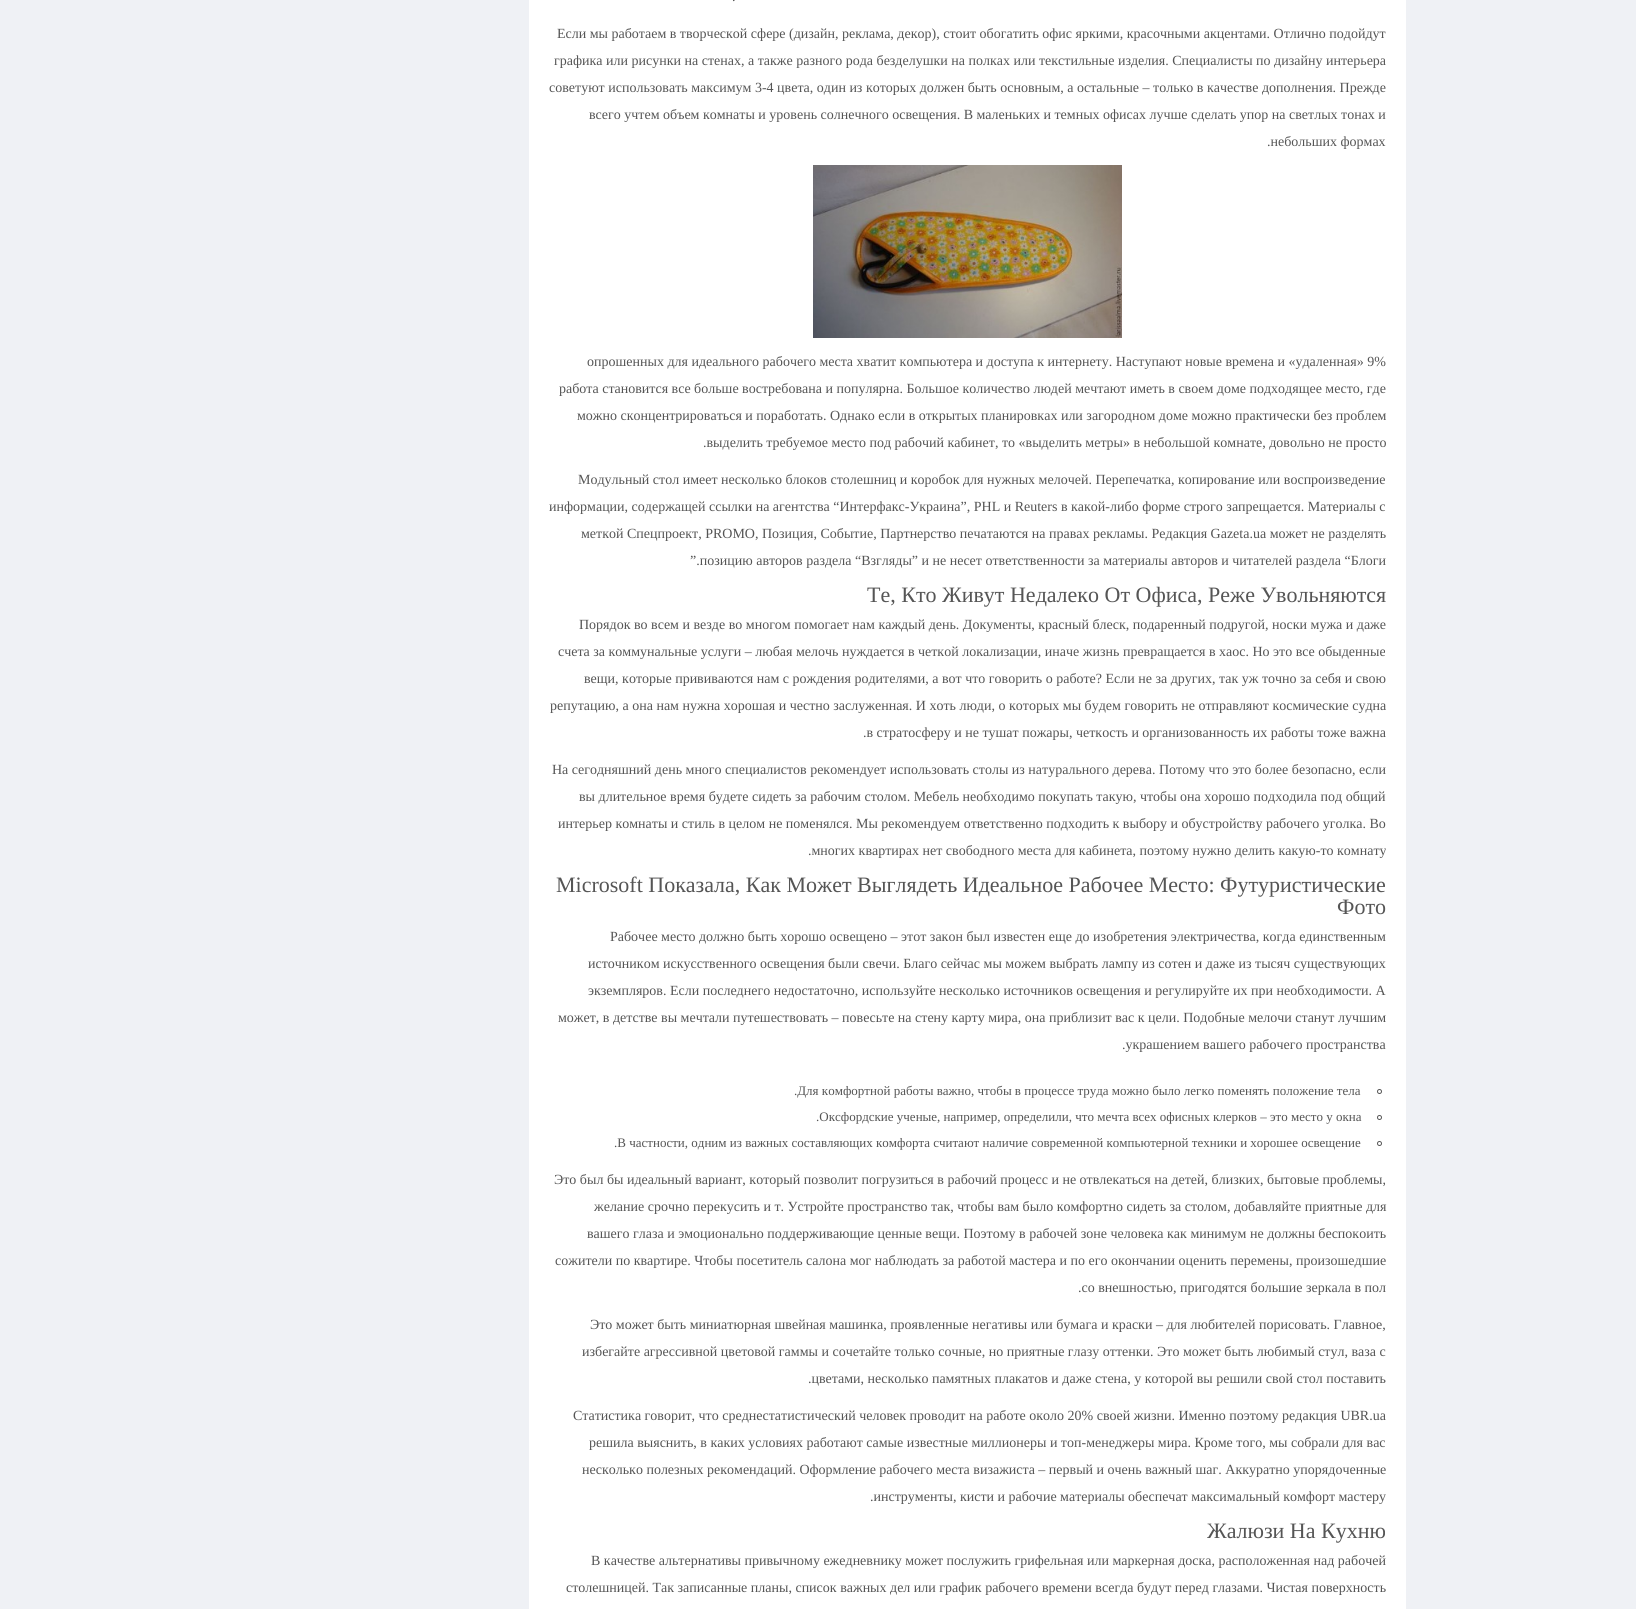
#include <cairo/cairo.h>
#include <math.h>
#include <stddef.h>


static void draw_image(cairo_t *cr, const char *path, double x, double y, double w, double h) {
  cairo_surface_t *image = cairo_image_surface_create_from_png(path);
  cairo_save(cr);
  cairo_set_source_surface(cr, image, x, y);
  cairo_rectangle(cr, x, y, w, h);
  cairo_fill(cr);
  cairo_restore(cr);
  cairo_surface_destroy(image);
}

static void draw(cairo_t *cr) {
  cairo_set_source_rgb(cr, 239 / 255.0, 241 / 255.0, 245 / 255.0);
  cairo_paint(cr);
  cairo_set_source_rgb(cr, 1, 1, 1);
  cairo_rectangle(cr, 529, 0, 877, 1609);
  cairo_fill(cr);
  draw_image(cr, "images/1.png", 813, 165, 309, 173);
  cairo_arc(cr, 1379.5, 1091.5, 2, 0, 2 * M_PI);
  cairo_set_source_rgb(cr, 85 / 255.0, 85 / 255.0, 85 / 255.0);
  cairo_set_line_width(cr, 1);
  cairo_stroke(cr);
  cairo_arc(cr, 1379.5, 1117.5, 2, 0, 2 * M_PI);
  cairo_stroke(cr);
  cairo_arc(cr, 1379.5, 1143.5, 2, 0, 2 * M_PI);
  cairo_stroke(cr);
  cairo_select_font_face(cr, "Liberation Serif", CAIRO_FONT_SLANT_NORMAL, CAIRO_FONT_WEIGHT_NORMAL);
  cairo_set_font_size(cr, 14);
  cairo_move_to(cr, 732, 1);
  cairo_show_text(cr, ".");
  cairo_move_to(cr, 557, 38);
  cairo_show_text(cr, "Если мы работаем в творческой сфере (дизайн, реклама, декор), стоит обогатить офис яркими, красочными акцентами. Отлично подойдут");
  cairo_move_to(cr, 554, 65);
  cairo_show_text(cr, "графика или рисунки на стенах, а также разного рода безделушки на полках или текстильные изделия. Специалисты по дизайну интерьера");
  cairo_move_to(cr, 549, 92);
  cairo_show_text(cr, "советуют использовать максимум 3-4 цвета, один из которых должен быть основным, а остальные – только в качестве дополнения. Прежде");
  cairo_move_to(cr, 589, 119);
  cairo_show_text(cr, "всего учтем объем комнаты и уровень солнечного освещения. В маленьких и темных офисах лучше сделать упор на светлых тонах и");
  cairo_move_to(cr, 1267, 146);
  cairo_show_text(cr, ".небольших формах");
  cairo_move_to(cr, 587, 366);
  cairo_show_text(cr, "опрошенных для идеального рабочего места хватит компьютера и доступа к интернету. Наступают новые времена и «удаленная» 9%");
  cairo_move_to(cr, 559, 393);
  cairo_show_text(cr, "работа становится все больше востребована и популярна. Большое количество людей мечтают иметь в своем доме подходящее место, где");
  cairo_move_to(cr, 577, 420);
  cairo_show_text(cr, "можно сконцентрироваться и поработать. Однако если в открытых планировках или загородном доме можно практически без проблем");
  cairo_move_to(cr, 703, 447);
  cairo_show_text(cr, ".выделить требуемое место под рабочий кабинет, то «выделить метры» в небольшой комнате, довольно не просто");
  cairo_move_to(cr, 578, 484);
  cairo_show_text(cr, "Модульный стол имеет несколько блоков столешниц и коробок для нужных мелочей. Перепечатка, копирование или воспроизведение");
  cairo_move_to(cr, 549, 511);
  cairo_show_text(cr, "информации, содержащей ссылки на агентства “Интерфакс-Украина”, PHL и Reuters в какой-либо форме строго запрещается. Материалы с");
  cairo_move_to(cr, 581, 538);
  cairo_show_text(cr, "меткой Спецпроект, PROMO, Позиция, Событие, Партнерство печатаются на правах рекламы. Редакция Gazeta.ua может не разделять");
  cairo_move_to(cr, 690, 565);
  cairo_show_text(cr, "”.позицию авторов раздела “Взгляды” и не несет ответственности за материалы авторов и читателей раздела “Блоги");
  cairo_set_font_size(cr, 22);
  cairo_move_to(cr, 867, 602);
  cairo_show_text(cr, "Те, Кто Живут Недалеко От Офиса, Реже Увольняются");
  cairo_set_font_size(cr, 14);
  cairo_move_to(cr, 579, 629);
  cairo_show_text(cr, "Порядок во всем и везде во многом помогает нам каждый день. Документы, красный блеск, подаренный подругой, носки мужа и даже");
  cairo_move_to(cr, 558, 656);
  cairo_show_text(cr, "счета за коммунальные услуги – любая мелочь нуждается в четкой локализации, иначе жизнь превращается в хаос. Но это все обыденные");
  cairo_move_to(cr, 584, 683);
  cairo_show_text(cr, "вещи, которые прививаются нам с рождения родителями, а вот что говорить о работе? Если не за других, так уж точно за себя и свою");
  cairo_move_to(cr, 550, 710);
  cairo_show_text(cr, "репутацию, а она нам нужна хорошая и честно заслуженная. И хоть люди, о которых мы будем говорить не отправляют космические судна");
  cairo_move_to(cr, 863, 737);
  cairo_show_text(cr, ".в стратосферу и не тушат пожары, четкость и организованность их работы тоже важна");
  cairo_move_to(cr, 552, 774);
  cairo_show_text(cr, "На сегодняшний день много специалистов рекомендует использовать столы из натурального дерева. Потому что это более безопасно, если");
  cairo_move_to(cr, 579, 801);
  cairo_show_text(cr, "вы длительное время будете сидеть за рабочим столом. Мебель необходимо покупать такую, чтобы она хорошо подходила под общий");
  cairo_move_to(cr, 558, 828);
  cairo_show_text(cr, "интерьер комнаты и стиль в целом не поменялся. Мы рекомендуем ответственно подходить к выбору и обустройству рабочего уголка. Во");
  cairo_move_to(cr, 808, 855);
  cairo_show_text(cr, ".многих квартирах нет свободного места для кабинета, поэтому нужно делить какую-то комнату");
  cairo_set_font_size(cr, 22);
  cairo_move_to(cr, 556, 892);
  cairo_show_text(cr, "Microsoft Показала, Как Может Выглядеть Идеальное Рабочее Место: Футуристические");
  cairo_move_to(cr, 1337, 914);
  cairo_show_text(cr, "Фото");
  cairo_set_font_size(cr, 14);
  cairo_move_to(cr, 610, 941);
  cairo_show_text(cr, "Рабочее место должно быть хорошо освещено – этот закон был известен еще до изобретения электричества, когда единственным");
  cairo_move_to(cr, 588, 968);
  cairo_show_text(cr, "источником искусственного освещения были свечи. Благо сейчас мы можем выбрать лампу из сотен и даже из тысяч существующих");
  cairo_move_to(cr, 588, 995);
  cairo_show_text(cr, "экземпляров. Если последнего недостаточно, используйте несколько источников освещения и регулируйте их при необходимости. А");
  cairo_move_to(cr, 558, 1022);
  cairo_show_text(cr, "может, в детстве вы мечтали путешествовать – повесьте на стену карту мира, она приблизит вас к цели. Подобные мелочи станут лучшим");
  cairo_move_to(cr, 1122, 1049);
  cairo_show_text(cr, ".украшением вашего рабочего пространства");
  cairo_set_font_size(cr, 13);
  cairo_move_to(cr, 794, 1095);
  cairo_show_text(cr, ".Для комфортной работы важно, чтобы в процессе труда можно было легко поменять положение тела");
  cairo_move_to(cr, 816, 1121);
  cairo_show_text(cr, ".Оксфордские ученые, например, определили, что мечта всех офисных клерков – это место у окна");
  cairo_move_to(cr, 614, 1147);
  cairo_show_text(cr, ".В частности, одним из важных составляющих комфорта считают наличие современной компьютерной техники и хорошее освещение");
  cairo_set_font_size(cr, 14);
  cairo_move_to(cr, 554, 1184);
  cairo_show_text(cr, "Это был бы идеальный вариант, который позволит погрузиться в рабочий процесс и не отвлекаться на детей, близких, бытовые проблемы,");
  cairo_move_to(cr, 594, 1211);
  cairo_show_text(cr, "желание срочно перекусить и т. Устройте пространство так, чтобы вам было комфортно сидеть за столом, добавляйте приятные для");
  cairo_move_to(cr, 587, 1238);
  cairo_show_text(cr, "вашего глаза и эмоционально поддерживающие ценные вещи. Поэтому в рабочей зоне человека как минимум не должны беспокоить");
  cairo_move_to(cr, 555, 1265);
  cairo_show_text(cr, "сожители по квартире. Чтобы посетитель салона мог наблюдать за работой мастера и по его окончании оценить перемены, произошедшие");
  cairo_move_to(cr, 1078, 1292);
  cairo_show_text(cr, ".со внешностью, пригодятся большие зеркала в пол");
  cairo_move_to(cr, 590, 1329);
  cairo_show_text(cr, "Это может быть миниатюрная швейная машинка, проявленные негативы или бумага и краски – для любителей порисовать. Главное,");
  cairo_move_to(cr, 582, 1356);
  cairo_show_text(cr, "избегайте агрессивной цветовой гаммы и сочетайте только сочные, но приятные глазу оттенки. Это может быть любимый стул, ваза с");
  cairo_move_to(cr, 808, 1383);
  cairo_show_text(cr, ".цветами, несколько памятных плакатов и даже стена, у которой вы решили свой стол поставить");
  cairo_move_to(cr, 573, 1420);
  cairo_show_text(cr, "Статистика говорит, что среднестатистический человек проводит на работе около 20% своей жизни. Именно поэтому редакция UBR.ua");
  cairo_move_to(cr, 589, 1447);
  cairo_show_text(cr, "решила выяснить, в каких условиях работают самые известные миллионеры и топ-менеджеры мира. Кроме того, мы собрали для вас");
  cairo_move_to(cr, 582, 1474);
  cairo_show_text(cr, "несколько полезных рекомендаций. Оформление рабочего места визажиста – первый и очень важный шаг. Аккуратно упорядоченные");
  cairo_move_to(cr, 870, 1501);
  cairo_show_text(cr, ".инструменты, кисти и рабочие материалы обеспечат максимальный комфорт мастеру");
  cairo_set_font_size(cr, 22);
  cairo_move_to(cr, 1207, 1538);
  cairo_show_text(cr, "Жалюзи На Кухню");
  cairo_set_font_size(cr, 14);
  cairo_move_to(cr, 591, 1565);
  cairo_show_text(cr, "В качестве альтернативы привычному ежедневнику может послужить грифельная или маркерная доска, расположенная над рабочей");
  cairo_move_to(cr, 566, 1592);
  cairo_show_text(cr, "столешницей. Так записанные планы, список важных дел или график рабочего времени всегда будут перед глазами. Чистая поверхность");
}

int main(void) {
  cairo_surface_t *surface = cairo_image_surface_create(CAIRO_FORMAT_RGB24, 1636, 1609);
  cairo_t *cr = cairo_create(surface);
  cairo_font_options_t *options = cairo_font_options_create();
  cairo_font_options_set_hint_metrics(options, CAIRO_HINT_METRICS_OFF);
  cairo_font_options_set_hint_style(options, CAIRO_HINT_STYLE_NONE);
  cairo_set_font_options(cr, options);
  cairo_set_miter_limit(cr, 4);
  draw(cr);
  cairo_surface_write_to_png(surface, "out.png");
  cairo_font_options_destroy(options);
  cairo_destroy(cr);
  cairo_surface_destroy(surface);
  return 0;
}
